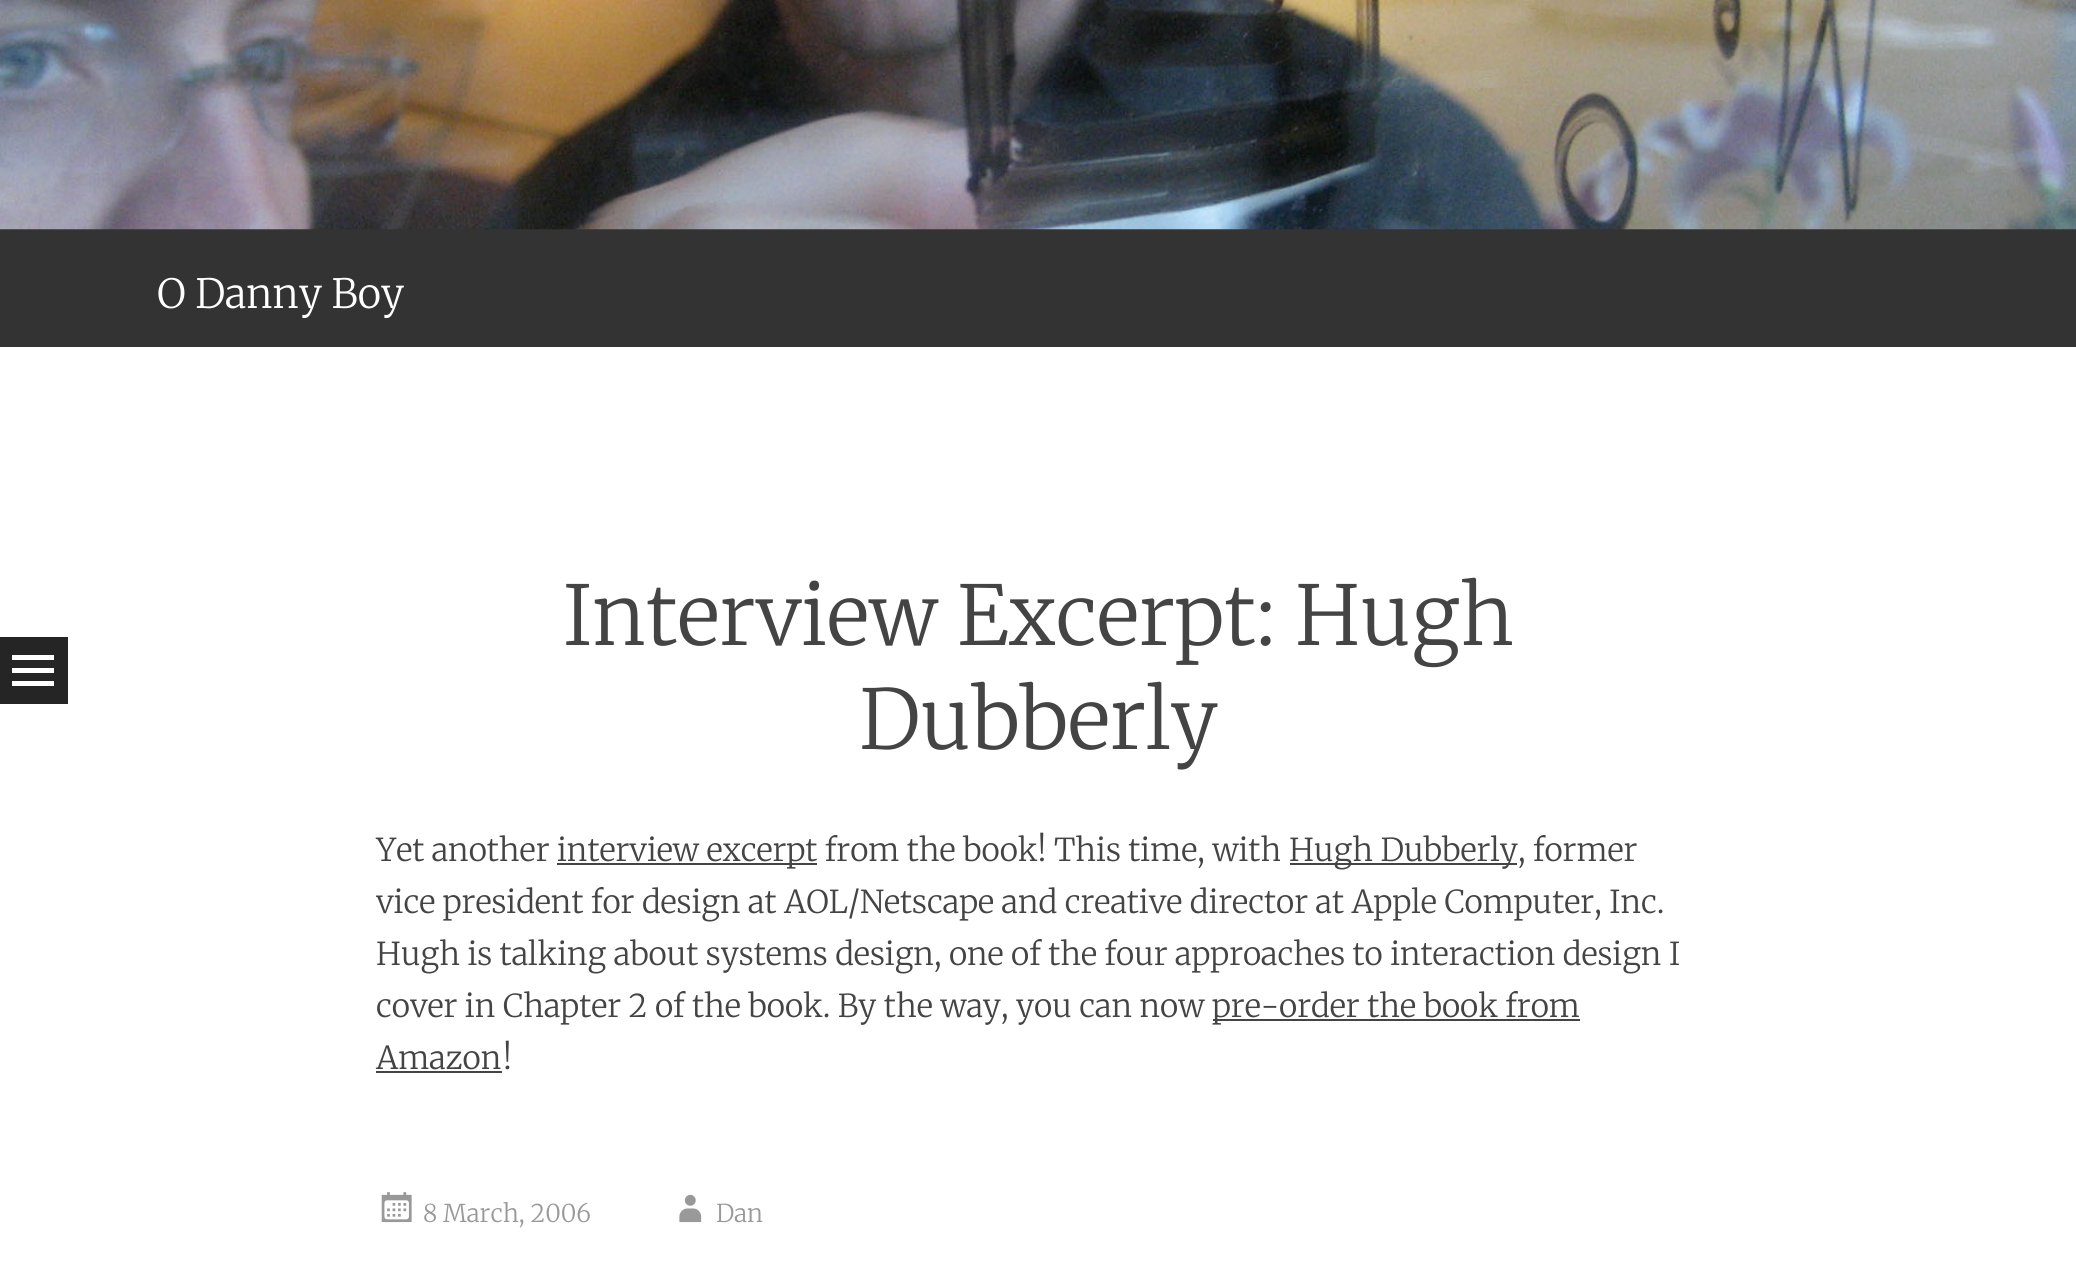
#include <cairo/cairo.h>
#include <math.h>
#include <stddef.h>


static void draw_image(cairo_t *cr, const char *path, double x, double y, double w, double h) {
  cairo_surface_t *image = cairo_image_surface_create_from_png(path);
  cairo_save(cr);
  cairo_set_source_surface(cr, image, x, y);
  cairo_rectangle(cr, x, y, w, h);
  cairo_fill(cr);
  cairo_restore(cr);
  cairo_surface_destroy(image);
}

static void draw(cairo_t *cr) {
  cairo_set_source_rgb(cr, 1, 1, 1);
  cairo_paint(cr);
  cairo_set_source_rgb(cr, 51 / 255.0, 51 / 255.0, 51 / 255.0);
  cairo_rectangle(cr, 0, 229, 2076, 118);
  cairo_fill(cr);
  draw_image(cr, "images/1.png", 0, 0, 2076, 230);
  cairo_set_source_rgb(cr, 37 / 255.0, 37 / 255.0, 37 / 255.0);
  cairo_rectangle(cr, 0, 637, 68, 67);
  cairo_fill(cr);
  cairo_set_source_rgb(cr, 1, 1, 1);
  cairo_new_path(cr);
  cairo_move_to(cr, 54, 655);
  cairo_line_to(cr, 54, 660);
  cairo_line_to(cr, 12, 660);
  cairo_line_to(cr, 12, 655);
  cairo_close_path(cr);
  cairo_move_to(cr, 12, 668);
  cairo_line_to(cr, 54, 668);
  cairo_line_to(cr, 54, 673);
  cairo_line_to(cr, 12, 673);
  cairo_close_path(cr);
  cairo_move_to(cr, 12, 681);
  cairo_line_to(cr, 54, 681);
  cairo_line_to(cr, 54, 686);
  cairo_line_to(cr, 12, 686);
  cairo_close_path(cr);
  cairo_fill(cr);
  cairo_set_source_rgb(cr, 68 / 255.0, 68 / 255.0, 68 / 255.0);
  cairo_rectangle(cr, 557, 863, 260, 2);
  cairo_fill(cr);
  cairo_rectangle(cr, 1290, 863, 227, 2);
  cairo_fill(cr);
  cairo_rectangle(cr, 1213, 1019, 367, 2);
  cairo_fill(cr);
  cairo_rectangle(cr, 376, 1071, 126, 2);
  cairo_fill(cr);
  draw_image(cr, "images/2.png", 381, 1192, 31, 31);
  draw_image(cr, "images/3.png", 679, 1194, 23, 29);
  cairo_select_font_face(cr, "Merriweather Light", CAIRO_FONT_SLANT_NORMAL, CAIRO_FONT_WEIGHT_NORMAL);
  cairo_set_font_size(cr, 40.25);
  cairo_set_source_rgb(cr, 1, 1, 1);
  cairo_move_to(cr, 157, 308);
  cairo_show_text(cr, "O Danny Boy");
  cairo_set_font_size(cr, 82.25);
  cairo_set_source_rgb(cr, 68 / 255.0, 68 / 255.0, 68 / 255.0);
  cairo_move_to(cr, 563, 645);
  cairo_show_text(cr, "Interview Excerpt: Hugh");
  cairo_move_to(cr, 859, 749);
  cairo_show_text(cr, "Dubberly");
  cairo_set_font_size(cr, 31.5);
  cairo_move_to(cr, 376, 861);
  cairo_show_text(cr, "Yet another");
  cairo_move_to(cr, 557, 861);
  cairo_show_text(cr, "interview excerpt from the book! This time, with");
  cairo_move_to(cr, 1289, 861);
  cairo_show_text(cr, "Hugh Dubberly, former");
  cairo_move_to(cr, 376, 913);
  cairo_show_text(cr, "vice president for design at AOL/Netscape and creative director at Apple Computer, Inc.");
  cairo_move_to(cr, 376, 965);
  cairo_show_text(cr, "Hugh is talking about systems design, one of the four approaches to interaction design I");
  cairo_move_to(cr, 376, 1017);
  cairo_show_text(cr, "cover in Chapter 2 of the book. By the way, you can now");
  cairo_move_to(cr, 1212, 1017);
  cairo_show_text(cr, "pre-order the book from");
  cairo_move_to(cr, 376, 1069);
  cairo_show_text(cr, "Amazon");
  cairo_move_to(cr, 503, 1069);
  cairo_show_text(cr, "!");
  cairo_set_font_size(cr, 24.5);
  cairo_set_source_rgb(cr, 153 / 255.0, 153 / 255.0, 153 / 255.0);
  cairo_move_to(cr, 423, 1222);
  cairo_show_text(cr, "8 March, 2006");
  cairo_move_to(cr, 716, 1222);
  cairo_show_text(cr, "Dan");
}

int main(void) {
  cairo_surface_t *surface = cairo_image_surface_create(CAIRO_FORMAT_RGB24, 2076, 1272);
  cairo_t *cr = cairo_create(surface);
  cairo_font_options_t *options = cairo_font_options_create();
  cairo_font_options_set_hint_metrics(options, CAIRO_HINT_METRICS_OFF);
  cairo_font_options_set_hint_style(options, CAIRO_HINT_STYLE_NONE);
  cairo_set_font_options(cr, options);
  cairo_set_miter_limit(cr, 4);
  draw(cr);
  cairo_surface_write_to_png(surface, "out.png");
  cairo_font_options_destroy(options);
  cairo_destroy(cr);
  cairo_surface_destroy(surface);
  return 0;
}
